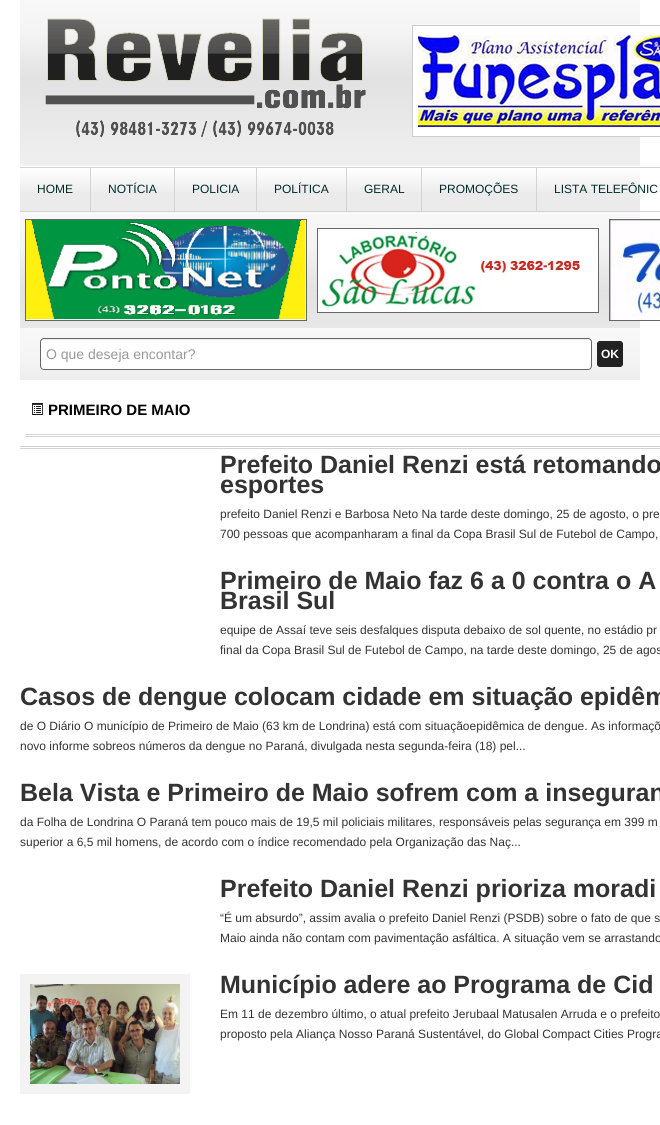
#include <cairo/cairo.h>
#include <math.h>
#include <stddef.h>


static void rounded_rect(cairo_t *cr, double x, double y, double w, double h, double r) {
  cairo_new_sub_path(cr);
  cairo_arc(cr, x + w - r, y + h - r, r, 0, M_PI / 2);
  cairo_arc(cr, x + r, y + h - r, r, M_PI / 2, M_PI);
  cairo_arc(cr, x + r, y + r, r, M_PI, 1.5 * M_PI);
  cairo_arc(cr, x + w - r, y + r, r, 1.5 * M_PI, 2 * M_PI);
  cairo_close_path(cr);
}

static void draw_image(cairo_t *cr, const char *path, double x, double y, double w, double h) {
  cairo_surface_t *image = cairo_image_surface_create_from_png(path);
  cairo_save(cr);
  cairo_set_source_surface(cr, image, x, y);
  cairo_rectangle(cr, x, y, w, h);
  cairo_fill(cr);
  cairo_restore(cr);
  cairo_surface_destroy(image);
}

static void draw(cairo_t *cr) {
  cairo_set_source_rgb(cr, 1, 1, 1);
  cairo_paint(cr);
  draw_image(cr, "images/1.png", 20, 0, 620, 212);
  draw_image(cr, "images/2.png", 45, 18, 321, 120);
  cairo_set_source_rgb(cr, 1, 1, 1);
  cairo_rectangle(cr, 413, 26, 227, 110);
  cairo_fill(cr);
  cairo_rectangle(cr, 412.5, 25.5, 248, 111);
  cairo_set_source_rgb(cr, 204 / 255.0, 204 / 255.0, 204 / 255.0);
  cairo_set_line_width(cr, 1);
  cairo_stroke(cr);
  draw_image(cr, "images/3.png", 418, 35, 242, 92);
  cairo_set_source_rgb(cr, 211 / 255.0, 211 / 255.0, 211 / 255.0);
  cairo_rectangle(cr, 90, 167, 1, 45);
  cairo_fill(cr);
  cairo_rectangle(cr, 174, 167, 1, 45);
  cairo_fill(cr);
  cairo_rectangle(cr, 256, 167, 1, 45);
  cairo_fill(cr);
  cairo_rectangle(cr, 346, 167, 1, 45);
  cairo_fill(cr);
  cairo_rectangle(cr, 421, 167, 1, 45);
  cairo_fill(cr);
  cairo_rectangle(cr, 536, 167, 1, 45);
  cairo_fill(cr);
  cairo_rectangle(cr, 640, 167, 20, 1);
  cairo_fill(cr);
  cairo_rectangle(cr, 640, 211, 20, 1);
  cairo_fill(cr);
  draw_image(cr, "images/4.png", 20, 212, 620, 116);
  cairo_rectangle(cr, 25.5, 219.5, 281, 101);
  cairo_set_source_rgb(cr, 102 / 255.0, 102 / 255.0, 102 / 255.0);
  cairo_stroke(cr);
  draw_image(cr, "images/5.png", 26, 220, 280, 100);
  cairo_rectangle(cr, 317.5, 228.5, 281, 84);
  cairo_stroke(cr);
  draw_image(cr, "images/6.png", 318, 229, 280, 83);
  cairo_rectangle(cr, 609.5, 219.5, 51, 101);
  cairo_stroke(cr);
  draw_image(cr, "images/7.png", 610, 220, 50, 100);
  draw_image(cr, "images/8.png", 20, 328, 620, 52);
  cairo_set_source_rgb(cr, 1, 1, 1);
  rounded_rect(cr, 40, 338, 552, 32, 4);
  cairo_fill(cr);
  cairo_set_source_rgb(cr, 236 / 255.0, 236 / 255.0, 236 / 255.0);
  cairo_new_path(cr);
  cairo_move_to(cr, 44, 340);
  cairo_line_to(cr, 588, 340);
  cairo_curve_to(cr, 590, 340, 591, 341, 591, 343);
  cairo_line_to(cr, 591, 342);
  cairo_curve_to(cr, 591, 340, 590, 339, 588, 339);
  cairo_line_to(cr, 44, 339);
  cairo_curve_to(cr, 42, 339, 41, 340, 41, 342);
  cairo_line_to(cr, 41, 343);
  cairo_curve_to(cr, 41, 341, 42, 340, 44, 340);
  cairo_close_path(cr);
  cairo_fill(cr);
  rounded_rect(cr, 40.5, 338.5, 551, 31, 3.5);
  cairo_set_source_rgb(cr, 102 / 255.0, 102 / 255.0, 102 / 255.0);
  cairo_stroke(cr);
  cairo_set_source_rgb(cr, 34 / 255.0, 34 / 255.0, 34 / 255.0);
  rounded_rect(cr, 597.5, 341.5, 25, 25, 2.5);
  cairo_fill_preserve(cr);
  cairo_stroke(cr);
  cairo_set_source_rgb(cr, 211 / 255.0, 211 / 255.0, 211 / 255.0);
  cairo_rectangle(cr, 20, 446, 640, 1);
  cairo_fill(cr);
  cairo_rectangle(cr, 20, 448, 640, 1);
  cairo_fill(cr);
  cairo_rectangle(cr, 25, 434, 635, 1);
  cairo_fill(cr);
  cairo_rectangle(cr, 25, 436, 635, 1);
  cairo_fill(cr);
  draw_image(cr, "images/9.png", 32, 403, 11, 12);
  cairo_rectangle(cr, 25, 979, 160, 110);
  cairo_set_source_rgb(cr, 243 / 255.0, 243 / 255.0, 243 / 255.0);
  cairo_set_line_width(cr, 10);
  cairo_stroke(cr);
  draw_image(cr, "images/10.png", 30, 984, 150, 100);
  cairo_select_font_face(cr, "Liberation Sans", CAIRO_FONT_SLANT_NORMAL, CAIRO_FONT_WEIGHT_NORMAL);
  cairo_set_font_size(cr, 12);
  cairo_set_source_rgb(cr, 1 / 255.0, 42 / 255.0, 42 / 255.0);
  cairo_move_to(cr, 37, 193);
  cairo_show_text(cr, "HOME");
  cairo_move_to(cr, 108, 193);
  cairo_show_text(cr, "NOTÍCIA");
  cairo_move_to(cr, 192, 193);
  cairo_show_text(cr, "POLICIA");
  cairo_move_to(cr, 274, 193);
  cairo_show_text(cr, "POLÍTICA");
  cairo_move_to(cr, 364, 193);
  cairo_show_text(cr, "GERAL");
  cairo_move_to(cr, 439, 193);
  cairo_show_text(cr, "PROMOÇÕES");
  cairo_move_to(cr, 554, 193);
  cairo_show_text(cr, "LISTA TELEFÔNIC");
  cairo_set_font_size(cr, 14);
  cairo_set_source_rgb(cr, 153 / 255.0, 153 / 255.0, 153 / 255.0);
  cairo_move_to(cr, 46, 359);
  cairo_show_text(cr, "O que deseja encontar?");
  cairo_select_font_face(cr, "Liberation Sans", CAIRO_FONT_SLANT_NORMAL, CAIRO_FONT_WEIGHT_BOLD);
  cairo_set_font_size(cr, 12);
  cairo_set_source_rgb(cr, 1, 1, 1);
  cairo_move_to(cr, 601, 358);
  cairo_show_text(cr, "OK");
  cairo_set_font_size(cr, 15);
  cairo_set_source_rgb(cr, 0, 0, 0);
  cairo_move_to(cr, 48, 415);
  cairo_show_text(cr, "PRIMEIRO DE MAIO");
  cairo_set_font_size(cr, 25);
  cairo_set_source_rgb(cr, 51 / 255.0, 51 / 255.0, 51 / 255.0);
  cairo_move_to(cr, 220, 473);
  cairo_show_text(cr, "Prefeito Daniel Renzi está retomando");
  cairo_move_to(cr, 220, 493);
  cairo_show_text(cr, "esportes");
  cairo_select_font_face(cr, "Liberation Sans", CAIRO_FONT_SLANT_NORMAL, CAIRO_FONT_WEIGHT_NORMAL);
  cairo_set_font_size(cr, 12);
  cairo_move_to(cr, 220, 518);
  cairo_show_text(cr, "prefeito Daniel Renzi e Barbosa Neto Na tarde deste domingo, 25 de agosto, o pre");
  cairo_move_to(cr, 220, 538);
  cairo_show_text(cr, "700 pessoas que acompanharam a final da Copa Brasil Sul de Futebol de Campo,");
  cairo_select_font_face(cr, "Liberation Sans", CAIRO_FONT_SLANT_NORMAL, CAIRO_FONT_WEIGHT_BOLD);
  cairo_set_font_size(cr, 25);
  cairo_move_to(cr, 220, 589);
  cairo_show_text(cr, "Primeiro de Maio faz 6 a 0 contra o A");
  cairo_move_to(cr, 220, 609);
  cairo_show_text(cr, "Brasil Sul");
  cairo_select_font_face(cr, "Liberation Sans", CAIRO_FONT_SLANT_NORMAL, CAIRO_FONT_WEIGHT_NORMAL);
  cairo_set_font_size(cr, 12);
  cairo_move_to(cr, 220, 634);
  cairo_show_text(cr, "equipe de Assaí teve seis desfalques disputa debaixo de sol quente, no estádio pr");
  cairo_move_to(cr, 220, 654);
  cairo_show_text(cr, "final da Copa Brasil Sul de Futebol de Campo, na tarde deste domingo, 25 de agos");
  cairo_select_font_face(cr, "Liberation Sans", CAIRO_FONT_SLANT_NORMAL, CAIRO_FONT_WEIGHT_BOLD);
  cairo_set_font_size(cr, 25);
  cairo_move_to(cr, 20, 705);
  cairo_show_text(cr, "Casos de dengue colocam cidade em situação epidêm");
  cairo_select_font_face(cr, "Liberation Sans", CAIRO_FONT_SLANT_NORMAL, CAIRO_FONT_WEIGHT_NORMAL);
  cairo_set_font_size(cr, 12);
  cairo_move_to(cr, 20, 730);
  cairo_show_text(cr, "de O Diário O município de Primeiro de Maio (63 km de Londrina) está com situaçãoepidêmica de dengue. As informaçõ");
  cairo_move_to(cr, 20, 750);
  cairo_show_text(cr, "novo informe sobreos números da dengue no Paraná, divulgada nesta segunda-feira (18) pel...");
  cairo_select_font_face(cr, "Liberation Sans", CAIRO_FONT_SLANT_NORMAL, CAIRO_FONT_WEIGHT_BOLD);
  cairo_set_font_size(cr, 25);
  cairo_move_to(cr, 20, 801);
  cairo_show_text(cr, "Bela Vista e Primeiro de Maio sofrem com a inseguran");
  cairo_select_font_face(cr, "Liberation Sans", CAIRO_FONT_SLANT_NORMAL, CAIRO_FONT_WEIGHT_NORMAL);
  cairo_set_font_size(cr, 12);
  cairo_move_to(cr, 20, 826);
  cairo_show_text(cr, "da Folha de Londrina O Paraná tem pouco mais de 19,5 mil policiais militares, responsáveis pelas segurança em 399 m");
  cairo_move_to(cr, 20, 846);
  cairo_show_text(cr, "superior a 6,5 mil homens, de acordo com o índice recomendado pela Organização das Naç...");
  cairo_select_font_face(cr, "Liberation Sans", CAIRO_FONT_SLANT_NORMAL, CAIRO_FONT_WEIGHT_BOLD);
  cairo_set_font_size(cr, 25);
  cairo_move_to(cr, 220, 897);
  cairo_show_text(cr, "Prefeito Daniel Renzi prioriza moradi");
  cairo_select_font_face(cr, "Liberation Sans", CAIRO_FONT_SLANT_NORMAL, CAIRO_FONT_WEIGHT_NORMAL);
  cairo_set_font_size(cr, 12);
  cairo_move_to(cr, 220, 922);
  cairo_show_text(cr, "“É um absurdo”, assim avalia o prefeito Daniel Renzi (PSDB) sobre o fato de que s");
  cairo_move_to(cr, 220, 942);
  cairo_show_text(cr, "Maio ainda não contam com pavimentação asfáltica. A situação vem se arrastando");
  cairo_select_font_face(cr, "Liberation Sans", CAIRO_FONT_SLANT_NORMAL, CAIRO_FONT_WEIGHT_BOLD);
  cairo_set_font_size(cr, 25);
  cairo_move_to(cr, 220, 993);
  cairo_show_text(cr, "Município adere ao Programa de Cid");
  cairo_select_font_face(cr, "Liberation Sans", CAIRO_FONT_SLANT_NORMAL, CAIRO_FONT_WEIGHT_NORMAL);
  cairo_set_font_size(cr, 12);
  cairo_move_to(cr, 220, 1018);
  cairo_show_text(cr, "Em 11 de dezembro último, o atual prefeito Jerubaal Matusalen Arruda e o prefeito");
  cairo_move_to(cr, 220, 1038);
  cairo_show_text(cr, "proposto pela Aliança Nosso Paraná Sustentável, do Global Compact Cities Progra");
}

int main(void) {
  cairo_surface_t *surface = cairo_image_surface_create(CAIRO_FORMAT_RGB24, 660, 1125);
  cairo_t *cr = cairo_create(surface);
  cairo_font_options_t *options = cairo_font_options_create();
  cairo_font_options_set_hint_metrics(options, CAIRO_HINT_METRICS_OFF);
  cairo_font_options_set_hint_style(options, CAIRO_HINT_STYLE_NONE);
  cairo_set_font_options(cr, options);
  cairo_set_miter_limit(cr, 4);
  draw(cr);
  cairo_surface_write_to_png(surface, "out.png");
  cairo_font_options_destroy(options);
  cairo_destroy(cr);
  cairo_surface_destroy(surface);
  return 0;
}
